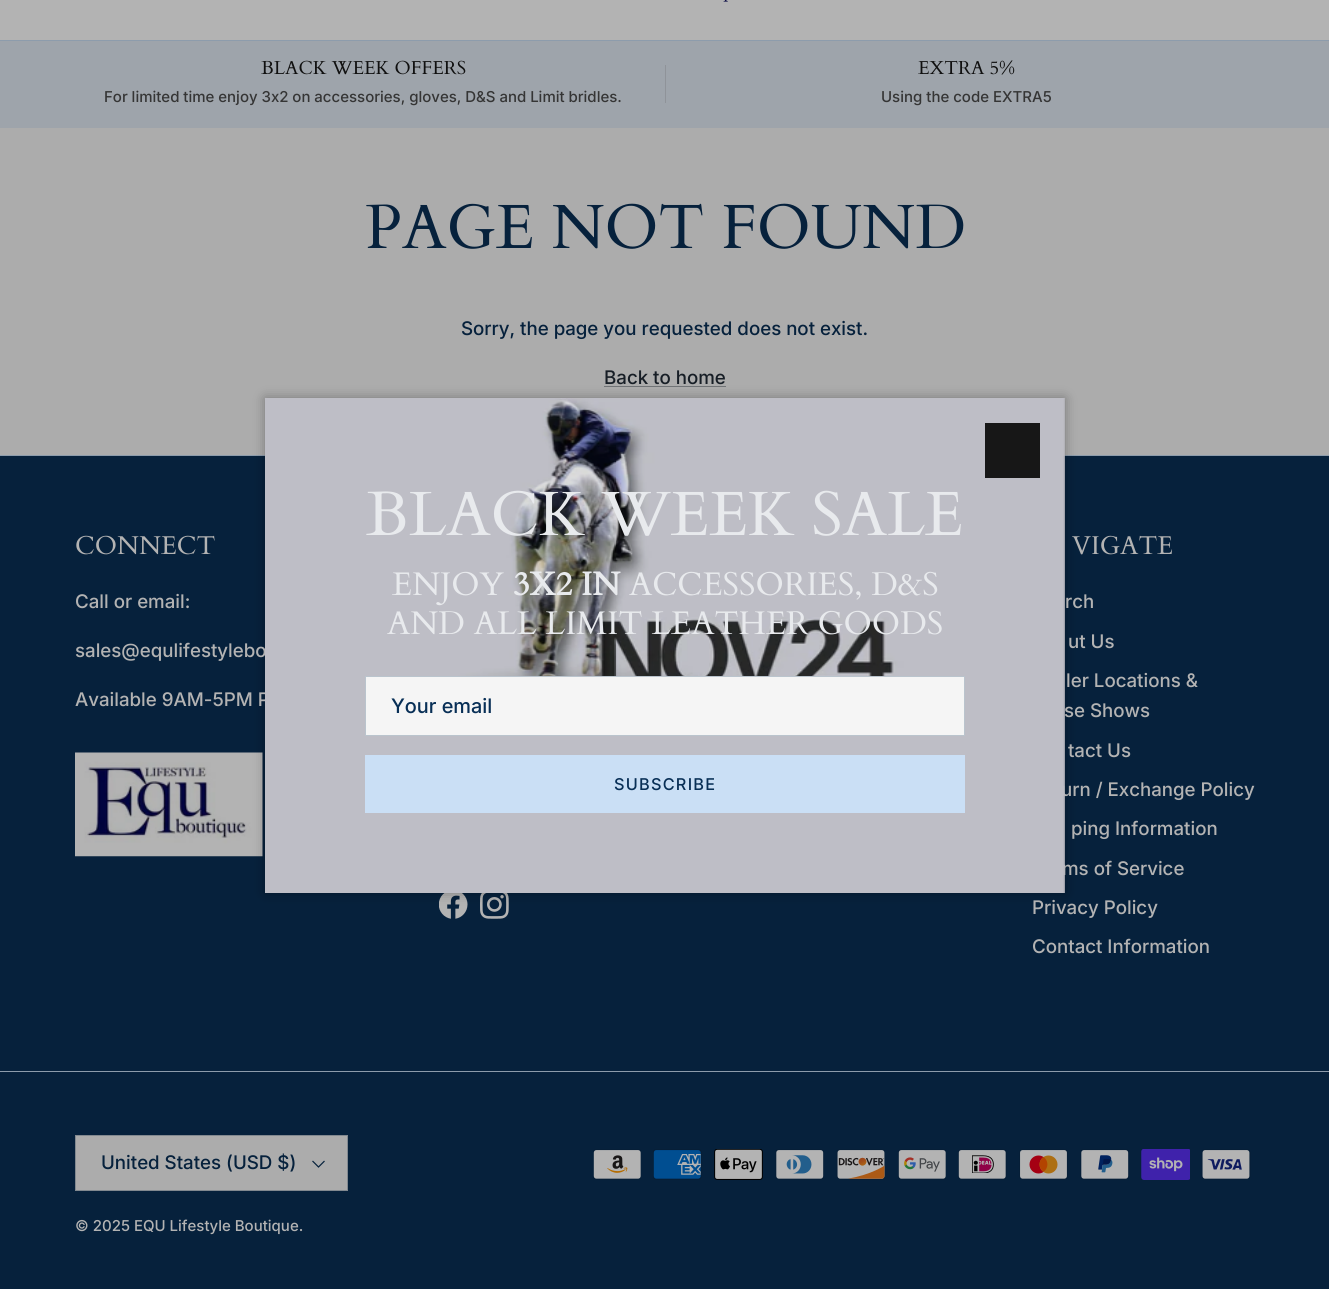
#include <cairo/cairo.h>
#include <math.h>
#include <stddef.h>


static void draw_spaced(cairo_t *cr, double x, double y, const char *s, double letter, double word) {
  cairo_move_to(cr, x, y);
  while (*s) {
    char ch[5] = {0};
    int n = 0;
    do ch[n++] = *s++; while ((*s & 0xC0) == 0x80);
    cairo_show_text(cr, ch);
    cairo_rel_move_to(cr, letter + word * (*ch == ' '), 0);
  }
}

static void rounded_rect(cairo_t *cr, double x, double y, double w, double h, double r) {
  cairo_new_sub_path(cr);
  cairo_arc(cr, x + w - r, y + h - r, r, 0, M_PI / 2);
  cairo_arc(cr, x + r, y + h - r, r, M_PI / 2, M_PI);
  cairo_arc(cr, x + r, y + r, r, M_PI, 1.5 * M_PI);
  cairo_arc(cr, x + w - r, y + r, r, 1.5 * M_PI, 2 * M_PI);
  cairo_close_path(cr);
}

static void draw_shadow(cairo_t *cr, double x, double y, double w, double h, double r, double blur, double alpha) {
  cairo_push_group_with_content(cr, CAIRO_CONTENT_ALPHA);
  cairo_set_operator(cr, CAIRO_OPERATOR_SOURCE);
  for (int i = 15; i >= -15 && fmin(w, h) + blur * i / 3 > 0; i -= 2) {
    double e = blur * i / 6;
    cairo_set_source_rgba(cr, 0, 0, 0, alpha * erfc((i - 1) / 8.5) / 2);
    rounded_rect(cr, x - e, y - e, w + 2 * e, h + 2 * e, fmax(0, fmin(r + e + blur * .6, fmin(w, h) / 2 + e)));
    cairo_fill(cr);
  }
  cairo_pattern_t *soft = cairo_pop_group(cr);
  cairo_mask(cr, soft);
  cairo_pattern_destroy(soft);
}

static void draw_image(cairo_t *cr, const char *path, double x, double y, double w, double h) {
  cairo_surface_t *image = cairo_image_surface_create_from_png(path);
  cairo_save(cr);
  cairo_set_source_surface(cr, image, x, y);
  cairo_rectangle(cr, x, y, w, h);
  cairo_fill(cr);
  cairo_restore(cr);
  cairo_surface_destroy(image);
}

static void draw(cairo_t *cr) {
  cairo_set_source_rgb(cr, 172 / 255.0, 172 / 255.0, 172 / 255.0);
  cairo_paint(cr);
  cairo_set_source_rgb(cr, 179 / 255.0, 179 / 255.0, 179 / 255.0);
  cairo_rectangle(cr, 0, 0, 1329, 40);
  cairo_fill(cr);
  cairo_set_source_rgb(cr, 141 / 255.0, 156 / 255.0, 172 / 255.0);
  cairo_rectangle(cr, 0, 40, 1329, 1);
  cairo_fill(cr);
  draw_image(cr, "images/1.png", 723, 0, 5, 2);
  cairo_set_source_rgb(cr, 158 / 255.0, 164 / 255.0, 171 / 255.0);
  cairo_rectangle(cr, 0, 41, 1329, 87);
  cairo_fill(cr);
  cairo_set_source_rgb(cr, 143 / 255.0, 147 / 255.0, 153 / 255.0);
  cairo_rectangle(cr, 665, 65, 1, 38);
  cairo_fill(cr);
  cairo_set_source_rgb(cr, 112 / 255.0, 115 / 255.0, 118 / 255.0);
  cairo_rectangle(cr, 604, 386, 122, 1);
  cairo_fill(cr);
  cairo_set_source_rgb(cr, 6 / 255.0, 33 / 255.0, 60 / 255.0);
  cairo_rectangle(cr, 0, 456, 1329, 833);
  cairo_fill(cr);
  cairo_set_source_rgb(cr, 141 / 255.0, 156 / 255.0, 172 / 255.0);
  cairo_rectangle(cr, 0, 455, 1329, 1);
  cairo_fill(cr);
  draw_image(cr, "images/3.png", 75, 752, 188, 105);
  draw_image(cr, "images/4.png", 439, 893, 29, 26);
  draw_image(cr, "images/5.png", 480, 893, 29, 26);
  cairo_set_source_rgb(cr, 0, 0, 0);
  draw_shadow(cr, 265, 398, 800, 495, 0, 6, 0.3);
  cairo_set_source_rgb(cr, 141 / 255.0, 156 / 255.0, 172 / 255.0);
  cairo_rectangle(cr, 0, 1071, 1329, 1);
  cairo_fill(cr);
  cairo_set_source_rgb(cr, 172 / 255.0, 172 / 255.0, 172 / 255.0);
  cairo_rectangle(cr, 75.5, 1135.5, 272, 55);
  cairo_fill_preserve(cr);
  cairo_set_source_rgb(cr, 130 / 255.0, 137 / 255.0, 144 / 255.0);
  cairo_set_line_width(cr, 1);
  cairo_stroke(cr);
  cairo_new_path(cr);
  cairo_move_to(cr, 324.5, 1161);
  cairo_line_to(cr, 318.5, 1167);
  cairo_line_to(cr, 312.5, 1161);
  cairo_set_source_rgb(cr, 6 / 255.0, 33 / 255.0, 60 / 255.0);
  cairo_set_line_width(cr, 1.2);
  cairo_stroke(cr);
  draw_image(cr, "images/6.png", 593, 1149, 48, 31);
  draw_image(cr, "images/7.png", 653, 1149, 49, 31);
  draw_image(cr, "images/8.png", 714, 1149, 49, 31);
  draw_image(cr, "images/9.png", 775, 1149, 49, 31);
  draw_image(cr, "images/10.png", 836, 1149, 49, 31);
  draw_image(cr, "images/11.png", 898, 1149, 48, 31);
  draw_image(cr, "images/12.png", 958, 1149, 49, 31);
  draw_image(cr, "images/13.png", 1019, 1149, 49, 31);
  draw_image(cr, "images/14.png", 1080, 1149, 49, 31);
  draw_image(cr, "images/15.png", 1141, 1149, 49, 31);
  draw_image(cr, "images/16.png", 1201, 1149, 50, 31);
  cairo_select_font_face(cr, "Cardo", CAIRO_FONT_SLANT_NORMAL, CAIRO_FONT_WEIGHT_NORMAL);
  cairo_set_font_size(cr, 18.75);
  cairo_set_source_rgb(cr, 16 / 255.0, 16 / 255.0, 16 / 255.0);
  cairo_move_to(cr, 261, 74);
  cairo_show_text(cr, "BLACK WEEK OFFERS");
  cairo_select_font_face(cr, "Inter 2 Medium", CAIRO_FONT_SLANT_NORMAL, CAIRO_FONT_WEIGHT_NORMAL);
  cairo_set_font_size(cr, 15);
  cairo_set_source_rgb(cr, 53 / 255.0, 53 / 255.0, 53 / 255.0);
  draw_spaced(cr, 104, 102, "For limited time enjoy 3x2 on accessories, gloves, D&S and Limit bridles.", 0, -0.1);
  cairo_select_font_face(cr, "Cardo", CAIRO_FONT_SLANT_NORMAL, CAIRO_FONT_WEIGHT_NORMAL);
  cairo_set_font_size(cr, 18.75);
  cairo_set_source_rgb(cr, 16 / 255.0, 16 / 255.0, 16 / 255.0);
  cairo_move_to(cr, 918, 74);
  cairo_show_text(cr, "EXTRA 5%");
  cairo_select_font_face(cr, "Inter 2 Medium", CAIRO_FONT_SLANT_NORMAL, CAIRO_FONT_WEIGHT_NORMAL);
  cairo_set_font_size(cr, 15);
  cairo_set_source_rgb(cr, 53 / 255.0, 53 / 255.0, 53 / 255.0);
  cairo_move_to(cr, 881, 102);
  cairo_show_text(cr, "Using the code EXTRA5");
  cairo_select_font_face(cr, "Cardo", CAIRO_FONT_SLANT_NORMAL, CAIRO_FONT_WEIGHT_NORMAL);
  cairo_set_font_size(cr, 62.5);
  cairo_set_source_rgb(cr, 6 / 255.0, 33 / 255.0, 60 / 255.0);
  cairo_move_to(cr, 365, 248);
  cairo_show_text(cr, "PAGE NOT FOUND");
  cairo_select_font_face(cr, "Inter Medium", CAIRO_FONT_SLANT_NORMAL, CAIRO_FONT_WEIGHT_NORMAL);
  cairo_set_font_size(cr, 18.75);
  cairo_move_to(cr, 461, 335);
  cairo_show_text(cr, "Sorry, the page you requested does not exist.");
  cairo_set_source_rgb(cr, 23 / 255.0, 30 / 255.0, 38 / 255.0);
  cairo_move_to(cr, 604, 384);
  cairo_show_text(cr, "Back to home");
  cairo_select_font_face(cr, "Cardo", CAIRO_FONT_SLANT_NORMAL, CAIRO_FONT_WEIGHT_NORMAL);
  cairo_set_font_size(cr, 25.75);
  cairo_set_source_rgb(cr, 179 / 255.0, 179 / 255.0, 179 / 255.0);
  cairo_move_to(cr, 75, 554);
  cairo_show_text(cr, "CONNECT");
  cairo_select_font_face(cr, "Inter Medium", CAIRO_FONT_SLANT_NORMAL, CAIRO_FONT_WEIGHT_NORMAL);
  cairo_set_font_size(cr, 18.75);
  cairo_move_to(cr, 75, 608);
  cairo_show_text(cr, "Call or email:");
  cairo_move_to(cr, 75, 657);
  cairo_show_text(cr, "sales@equlifestylebo");
  cairo_move_to(cr, 75, 706);
  cairo_show_text(cr, "Available 9AM-5PM P");
  cairo_select_font_face(cr, "Cardo", CAIRO_FONT_SLANT_NORMAL, CAIRO_FONT_WEIGHT_NORMAL);
  cairo_set_font_size(cr, 25.75);
  cairo_move_to(cr, 1072, 554);
  cairo_show_text(cr, "VIGATE");
  cairo_select_font_face(cr, "Inter Medium", CAIRO_FONT_SLANT_NORMAL, CAIRO_FONT_WEIGHT_NORMAL);
  cairo_set_font_size(cr, 18.75);
  cairo_move_to(cr, 1065, 608);
  cairo_show_text(cr, "rch");
  cairo_move_to(cr, 1068, 648);
  cairo_show_text(cr, "ut Us");
  cairo_move_to(cr, 1066, 687);
  cairo_show_text(cr, "ler Locations &");
  cairo_move_to(cr, 1064, 717);
  cairo_show_text(cr, "se Shows");
  cairo_move_to(cr, 1068, 757);
  cairo_show_text(cr, "tact Us");
  cairo_move_to(cr, 1061, 796);
  cairo_show_text(cr, "urn / Exchange Policy");
  cairo_move_to(cr, 1071, 835);
  cairo_show_text(cr, "ping Information");
  cairo_move_to(cr, 1062, 875);
  cairo_show_text(cr, "ms of Service");
  draw_image(cr, "images/2.png", 265, 398, 800, 495);
  cairo_set_source_rgba(cr, 23 / 255.0, 23 / 255.0, 23 / 255.0, 0.15);
  cairo_rectangle(cr, 265, 398, 800, 495);
  cairo_fill(cr);
  cairo_set_source_rgb(cr, 23 / 255.0, 23 / 255.0, 23 / 255.0);
  cairo_rectangle(cr, 985, 423, 55, 55);
  cairo_fill(cr);
  cairo_set_source_rgb(cr, 202 / 255.0, 223 / 255.0, 245 / 255.0);
  cairo_rectangle(cr, 365, 755, 600, 58);
  cairo_fill(cr);
  cairo_select_font_face(cr, "Inter 2 Medium", CAIRO_FONT_SLANT_NORMAL, CAIRO_FONT_WEIGHT_NORMAL);
  cairo_set_font_size(cr, 16.25);
  cairo_set_source_rgb(cr, 8 / 255.0, 47 / 255.0, 86 / 255.0);
  draw_spaced(cr, 614, 790, "SUBSCRIBE", 1.25, 0);
  cairo_set_source_rgb(cr, 245 / 255.0, 245 / 255.0, 245 / 255.0);
  cairo_rectangle(cr, 365.5, 676.5, 599, 59);
  cairo_fill_preserve(cr);
  cairo_set_source_rgb(cr, 186 / 255.0, 196 / 255.0, 205 / 255.0);
  cairo_set_line_width(cr, 1);
  cairo_stroke(cr);
  cairo_select_font_face(cr, "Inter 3 Medium", CAIRO_FONT_SLANT_NORMAL, CAIRO_FONT_WEIGHT_NORMAL);
  cairo_set_font_size(cr, 20);
  cairo_set_source_rgb(cr, 8 / 255.0, 47 / 255.0, 86 / 255.0);
  cairo_move_to(cr, 391, 713);
  cairo_show_text(cr, "Your email");
  cairo_select_font_face(cr, "Cardo", CAIRO_FONT_SLANT_NORMAL, CAIRO_FONT_WEIGHT_NORMAL);
  cairo_set_font_size(cr, 32.75);
  cairo_set_source_rgb(cr, 232 / 255.0, 234 / 255.0, 237 / 255.0);
  cairo_move_to(cr, 387, 634);
  cairo_show_text(cr, "AND ALL LIMIT LEATHER GOODS");
  cairo_move_to(cr, 629, 595);
  cairo_show_text(cr, "ACCESSORIES, D&S");
  cairo_select_font_face(cr, "Cardo", CAIRO_FONT_SLANT_NORMAL, CAIRO_FONT_WEIGHT_BOLD);
  cairo_move_to(cr, 513, 595);
  cairo_show_text(cr, "3X2 IN");
  cairo_select_font_face(cr, "Cardo", CAIRO_FONT_SLANT_NORMAL, CAIRO_FONT_WEIGHT_NORMAL);
  cairo_move_to(cr, 392, 595);
  cairo_show_text(cr, "ENJOY");
  cairo_set_font_size(cr, 62.5);
  cairo_move_to(cr, 366, 535);
  cairo_show_text(cr, "BLACK WEEK SALE");
  cairo_select_font_face(cr, "Inter Medium", CAIRO_FONT_SLANT_NORMAL, CAIRO_FONT_WEIGHT_NORMAL);
  cairo_set_font_size(cr, 18.75);
  cairo_set_source_rgb(cr, 179 / 255.0, 179 / 255.0, 179 / 255.0);
  cairo_move_to(cr, 1032, 914);
  cairo_show_text(cr, "Privacy Policy");
  cairo_move_to(cr, 1032, 953);
  cairo_show_text(cr, "Contact Information");
  cairo_set_source_rgb(cr, 6 / 255.0, 33 / 255.0, 60 / 255.0);
  cairo_move_to(cr, 101, 1169);
  cairo_show_text(cr, "United States (USD $)");
  cairo_select_font_face(cr, "Inter 2 Medium", CAIRO_FONT_SLANT_NORMAL, CAIRO_FONT_WEIGHT_NORMAL);
  cairo_set_font_size(cr, 15);
  cairo_set_source_rgb(cr, 179 / 255.0, 179 / 255.0, 179 / 255.0);
  cairo_move_to(cr, 75, 1231);
  cairo_show_text(cr, "© 2025 EQU Lifestyle Boutique.");
}

int main(void) {
  cairo_surface_t *surface = cairo_image_surface_create(CAIRO_FORMAT_RGB24, 1329, 1289);
  cairo_t *cr = cairo_create(surface);
  cairo_font_options_t *options = cairo_font_options_create();
  cairo_font_options_set_hint_metrics(options, CAIRO_HINT_METRICS_OFF);
  cairo_font_options_set_hint_style(options, CAIRO_HINT_STYLE_NONE);
  cairo_set_font_options(cr, options);
  cairo_set_miter_limit(cr, 4);
  draw(cr);
  cairo_surface_write_to_png(surface, "out.png");
  cairo_font_options_destroy(options);
  cairo_destroy(cr);
  cairo_surface_destroy(surface);
  return 0;
}
